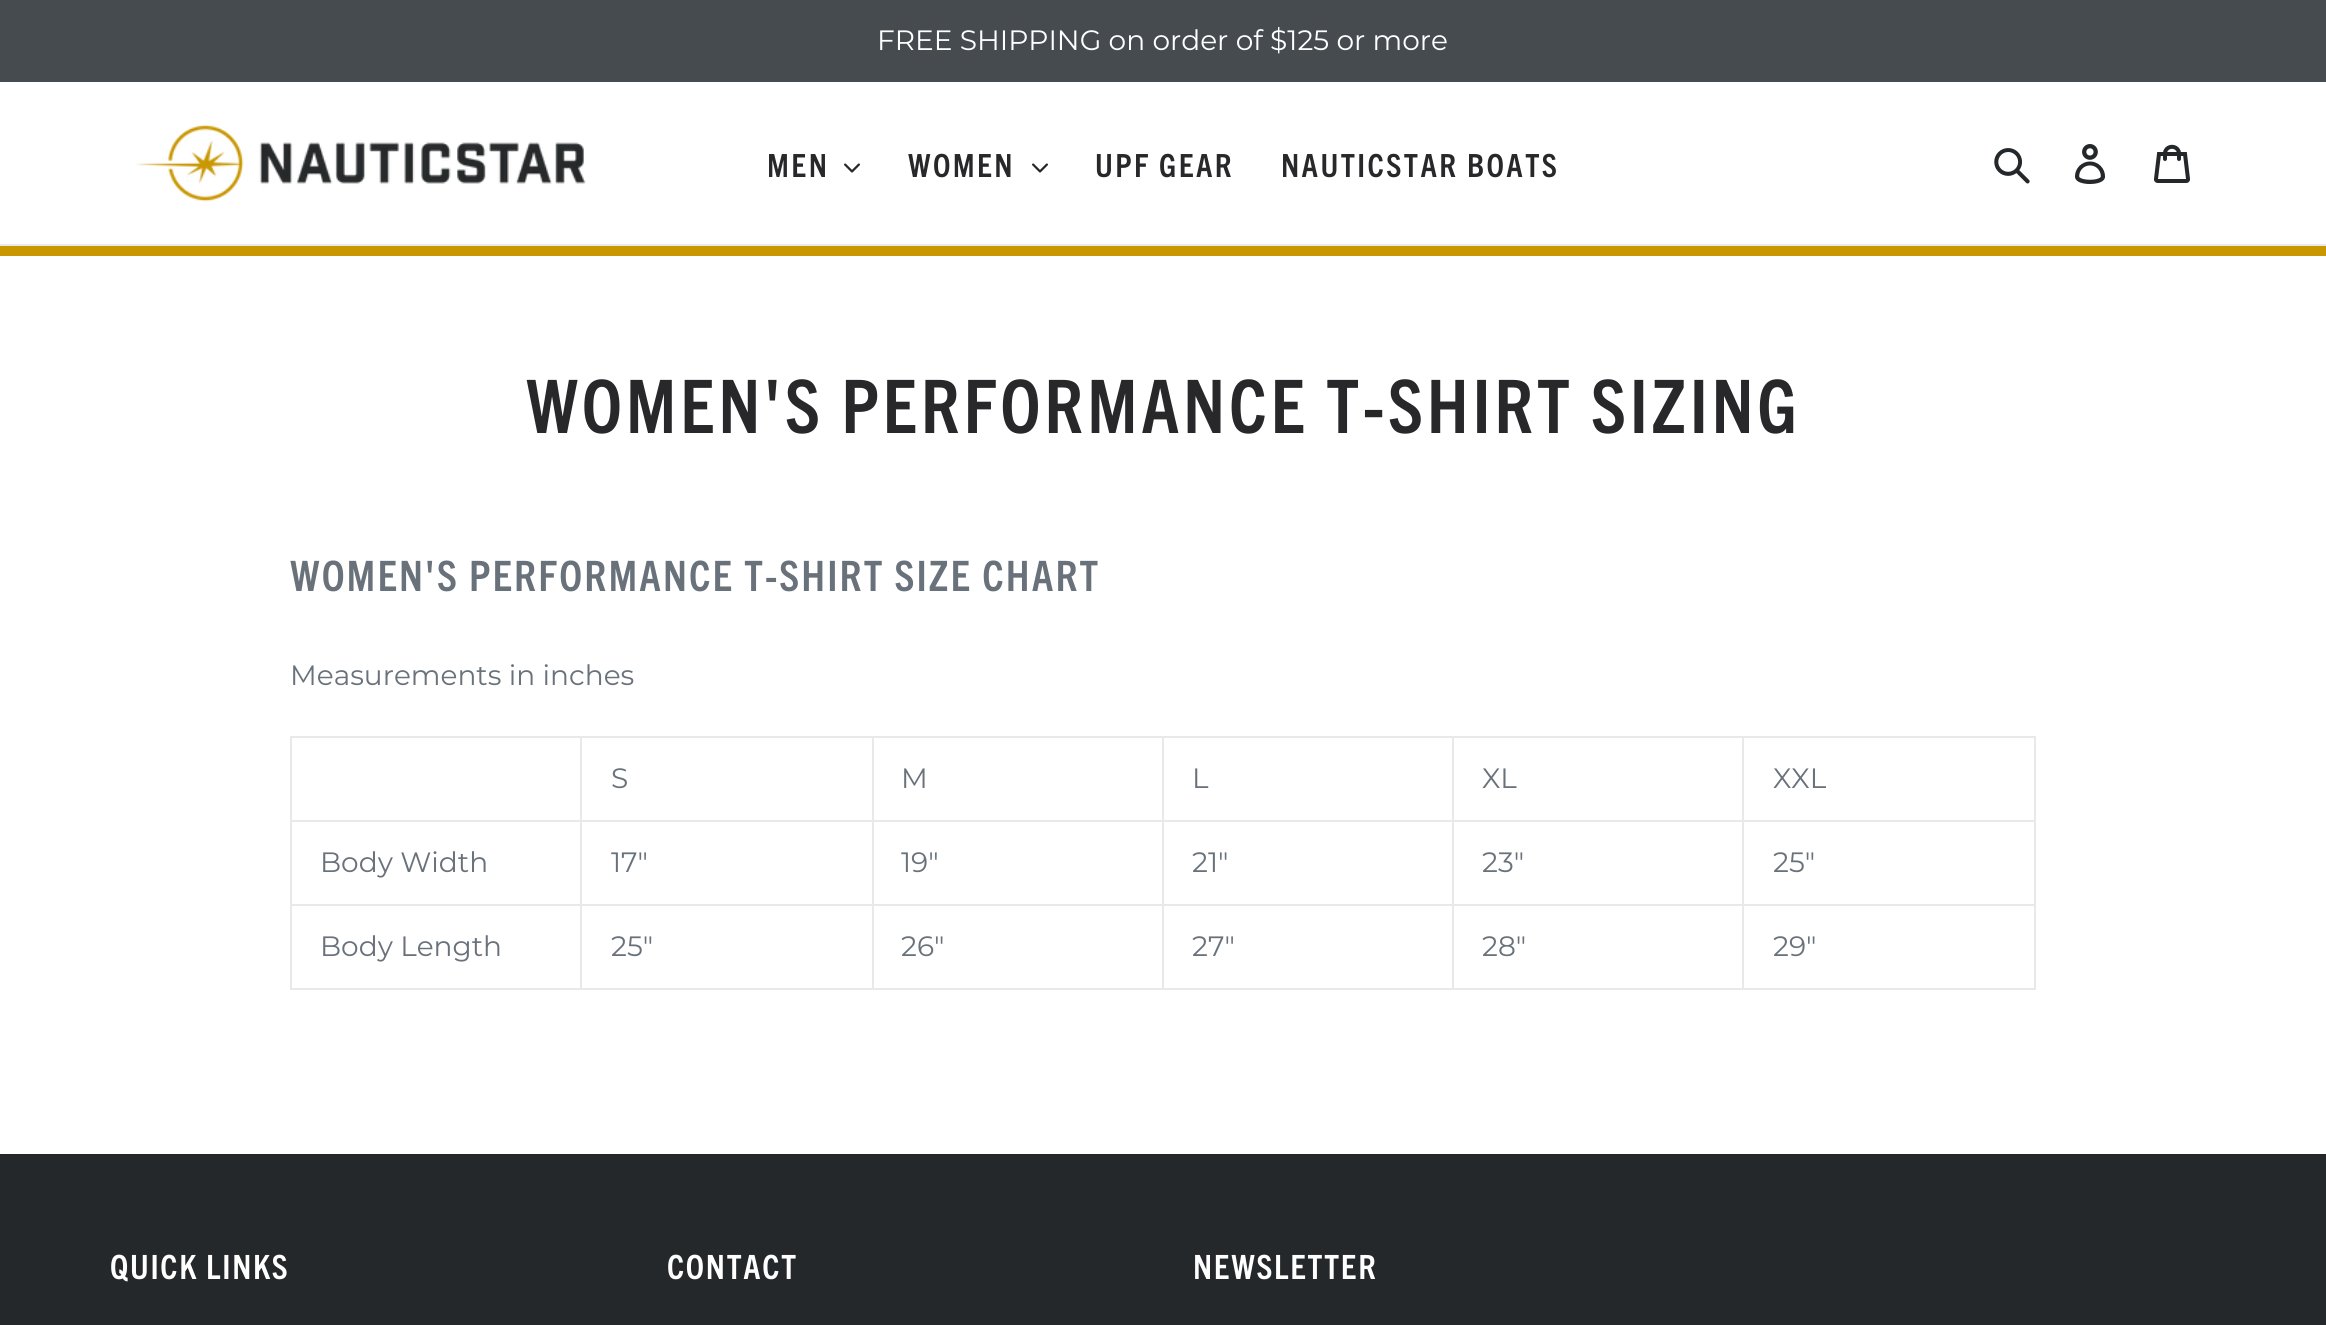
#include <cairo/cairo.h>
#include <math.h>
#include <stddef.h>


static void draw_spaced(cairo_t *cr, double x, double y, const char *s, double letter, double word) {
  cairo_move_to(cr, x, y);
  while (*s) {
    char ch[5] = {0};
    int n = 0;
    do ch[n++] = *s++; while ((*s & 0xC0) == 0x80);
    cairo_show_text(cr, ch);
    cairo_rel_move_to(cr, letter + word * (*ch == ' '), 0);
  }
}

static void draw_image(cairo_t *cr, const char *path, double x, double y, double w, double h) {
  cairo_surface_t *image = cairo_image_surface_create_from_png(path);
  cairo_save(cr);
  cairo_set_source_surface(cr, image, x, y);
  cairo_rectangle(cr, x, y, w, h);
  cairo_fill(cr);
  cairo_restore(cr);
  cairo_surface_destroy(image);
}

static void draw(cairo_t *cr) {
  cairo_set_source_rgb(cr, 1, 1, 1);
  cairo_paint(cr);
  cairo_set_source_rgb(cr, 201 / 255.0, 151 / 255.0, 0);
  cairo_rectangle(cr, 0, 246, 2326, 10);
  cairo_fill(cr);
  cairo_set_source_rgb(cr, 69 / 255.0, 75 / 255.0, 79 / 255.0);
  cairo_rectangle(cr, 0, 0, 2326, 82);
  cairo_fill(cr);
  cairo_set_source_rgb(cr, 232 / 255.0, 233 / 255.0, 235 / 255.0);
  cairo_rectangle(cr, 0, 244, 2326, 2);
  cairo_fill(cr);
  draw_image(cr, "images/1.png", 136, 124, 450, 78);
  draw_image(cr, "images/2.png", 844, 163, 16, 10);
  draw_image(cr, "images/2.png", 1032, 163, 16, 10);
  draw_image(cr, "images/3.png", 1994, 148, 36, 36);
  draw_image(cr, "images/4.png", 2075, 144, 31, 40);
  draw_image(cr, "images/5.png", 2154, 144, 36, 39);
  cairo_rectangle(cr, 1742, 736, 294, 2);
  cairo_fill(cr);
  cairo_rectangle(cr, 1742, 820, 294, 2);
  cairo_fill(cr);
  cairo_rectangle(cr, 1742, 904, 294, 2);
  cairo_fill(cr);
  cairo_rectangle(cr, 2034, 904, 2, 86);
  cairo_fill(cr);
  cairo_rectangle(cr, 1742, 988, 294, 2);
  cairo_fill(cr);
  cairo_rectangle(cr, 1742, 904, 2, 86);
  cairo_fill(cr);
  cairo_rectangle(cr, 1452, 904, 292, 2);
  cairo_fill(cr);
  cairo_rectangle(cr, 1742, 820, 2, 86);
  cairo_fill(cr);
  cairo_rectangle(cr, 1452, 820, 292, 2);
  cairo_fill(cr);
  cairo_rectangle(cr, 1742, 736, 2, 86);
  cairo_fill(cr);
  cairo_rectangle(cr, 1452, 736, 292, 2);
  cairo_fill(cr);
  cairo_rectangle(cr, 1452, 988, 292, 2);
  cairo_fill(cr);
  cairo_rectangle(cr, 1452, 904, 2, 86);
  cairo_fill(cr);
  cairo_rectangle(cr, 1162, 904, 292, 2);
  cairo_fill(cr);
  cairo_rectangle(cr, 1452, 820, 2, 86);
  cairo_fill(cr);
  cairo_rectangle(cr, 1162, 820, 292, 2);
  cairo_fill(cr);
  cairo_rectangle(cr, 1452, 736, 2, 86);
  cairo_fill(cr);
  cairo_rectangle(cr, 1162, 736, 292, 2);
  cairo_fill(cr);
  cairo_rectangle(cr, 1162, 988, 292, 2);
  cairo_fill(cr);
  cairo_rectangle(cr, 1162, 904, 2, 86);
  cairo_fill(cr);
  cairo_rectangle(cr, 872, 904, 292, 2);
  cairo_fill(cr);
  cairo_rectangle(cr, 1162, 820, 2, 86);
  cairo_fill(cr);
  cairo_rectangle(cr, 872, 820, 292, 2);
  cairo_fill(cr);
  cairo_rectangle(cr, 1162, 736, 2, 86);
  cairo_fill(cr);
  cairo_rectangle(cr, 872, 736, 292, 2);
  cairo_fill(cr);
  cairo_rectangle(cr, 872, 988, 292, 2);
  cairo_fill(cr);
  cairo_rectangle(cr, 872, 904, 2, 86);
  cairo_fill(cr);
  cairo_rectangle(cr, 580, 904, 294, 2);
  cairo_fill(cr);
  cairo_rectangle(cr, 872, 820, 2, 86);
  cairo_fill(cr);
  cairo_rectangle(cr, 580, 820, 294, 2);
  cairo_fill(cr);
  cairo_rectangle(cr, 872, 736, 2, 86);
  cairo_fill(cr);
  cairo_rectangle(cr, 580, 736, 294, 2);
  cairo_fill(cr);
  cairo_rectangle(cr, 580, 988, 294, 2);
  cairo_fill(cr);
  cairo_rectangle(cr, 580, 904, 2, 86);
  cairo_fill(cr);
  cairo_rectangle(cr, 290, 904, 292, 2);
  cairo_fill(cr);
  cairo_rectangle(cr, 580, 820, 2, 86);
  cairo_fill(cr);
  cairo_rectangle(cr, 290, 820, 292, 2);
  cairo_fill(cr);
  cairo_rectangle(cr, 580, 736, 2, 86);
  cairo_fill(cr);
  cairo_rectangle(cr, 290, 736, 292, 2);
  cairo_fill(cr);
  cairo_rectangle(cr, 290, 988, 292, 2);
  cairo_fill(cr);
  cairo_rectangle(cr, 290, 904, 2, 86);
  cairo_fill(cr);
  cairo_rectangle(cr, 290, 820, 2, 86);
  cairo_fill(cr);
  cairo_rectangle(cr, 290, 736, 2, 86);
  cairo_fill(cr);
  cairo_rectangle(cr, 2034, 820, 2, 86);
  cairo_fill(cr);
  cairo_rectangle(cr, 2034, 736, 2, 86);
  cairo_fill(cr);
  cairo_set_source_rgb(cr, 37 / 255.0, 40 / 255.0, 42 / 255.0);
  cairo_rectangle(cr, 0, 1154, 2326, 171);
  cairo_fill(cr);
  cairo_select_font_face(cr, "Montserrat", CAIRO_FONT_SLANT_NORMAL, CAIRO_FONT_WEIGHT_NORMAL);
  cairo_set_font_size(cr, 28);
  cairo_set_source_rgb(cr, 1, 1, 1);
  cairo_move_to(cr, 877, 50);
  cairo_show_text(cr, "FREE SHIPPING on order of $125 or more");
  cairo_select_font_face(cr, "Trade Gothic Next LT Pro", CAIRO_FONT_SLANT_NORMAL, CAIRO_FONT_WEIGHT_BOLD);
  cairo_set_font_size(cr, 32);
  cairo_set_source_rgb(cr, 40 / 255.0, 40 / 255.0, 42 / 255.0);
  draw_spaced(cr, 767, 177, "MEN", 2.4, 0);
  draw_spaced(cr, 908, 177, "WOMEN", 2.4, 0);
  draw_spaced(cr, 1095, 177, "UPF GEAR", 2.4, 0);
  draw_spaced(cr, 1281, 177, "NAUTICSTAR BOATS", 2.4, 0);
  cairo_set_font_size(cr, 74);
  draw_spaced(cr, 526, 433, "WOMEN'S PERFORMANCE T-SHIRT SIZING", 3.7, 0);
  cairo_set_font_size(cr, 42);
  cairo_set_source_rgb(cr, 105 / 255.0, 114 / 255.0, 123 / 255.0);
  draw_spaced(cr, 290, 591, "WOMEN'S PERFORMANCE T-SHIRT SIZE CHART", 2.1, 0);
  cairo_select_font_face(cr, "Montserrat", CAIRO_FONT_SLANT_NORMAL, CAIRO_FONT_WEIGHT_NORMAL);
  cairo_set_font_size(cr, 28);
  cairo_move_to(cr, 290, 685);
  cairo_show_text(cr, "Measurements in inches");
  cairo_move_to(cr, 611, 788);
  cairo_show_text(cr, "S");
  cairo_move_to(cr, 901, 788);
  cairo_show_text(cr, "M");
  cairo_move_to(cr, 1192, 788);
  cairo_show_text(cr, "L");
  cairo_move_to(cr, 1482, 788);
  cairo_show_text(cr, "XL");
  cairo_move_to(cr, 1773, 788);
  cairo_show_text(cr, "XXL");
  cairo_move_to(cr, 320, 872);
  cairo_show_text(cr, "Body Width");
  cairo_move_to(cr, 611, 872);
  cairo_show_text(cr, "17\"");
  cairo_move_to(cr, 901, 872);
  cairo_show_text(cr, "19\"");
  cairo_move_to(cr, 1192, 872);
  cairo_show_text(cr, "21\"");
  cairo_move_to(cr, 1482, 872);
  cairo_show_text(cr, "23\"");
  cairo_move_to(cr, 1773, 872);
  cairo_show_text(cr, "25\"");
  cairo_move_to(cr, 320, 956);
  cairo_show_text(cr, "Body Length");
  cairo_move_to(cr, 611, 956);
  cairo_show_text(cr, "25\"");
  cairo_move_to(cr, 901, 956);
  cairo_show_text(cr, "26\"");
  cairo_move_to(cr, 1192, 956);
  cairo_show_text(cr, "27\"");
  cairo_move_to(cr, 1482, 956);
  cairo_show_text(cr, "28\"");
  cairo_move_to(cr, 1773, 956);
  cairo_show_text(cr, "29\"");
  cairo_select_font_face(cr, "Trade Gothic Next LT Pro", CAIRO_FONT_SLANT_NORMAL, CAIRO_FONT_WEIGHT_BOLD);
  cairo_set_font_size(cr, 33.5);
  cairo_set_source_rgb(cr, 1, 1, 1);
  draw_spaced(cr, 110, 1279, "QUICK LINKS", 1.75, 0);
  draw_spaced(cr, 667, 1279, "CONTACT", 1.75, 0);
  draw_spaced(cr, 1193, 1279, "NEWSLETTER", 1.75, 0);
}

int main(void) {
  cairo_surface_t *surface = cairo_image_surface_create(CAIRO_FORMAT_RGB24, 2326, 1325);
  cairo_t *cr = cairo_create(surface);
  cairo_font_options_t *options = cairo_font_options_create();
  cairo_font_options_set_hint_metrics(options, CAIRO_HINT_METRICS_OFF);
  cairo_font_options_set_hint_style(options, CAIRO_HINT_STYLE_NONE);
  cairo_set_font_options(cr, options);
  cairo_set_miter_limit(cr, 4);
  draw(cr);
  cairo_surface_write_to_png(surface, "out.png");
  cairo_font_options_destroy(options);
  cairo_destroy(cr);
  cairo_surface_destroy(surface);
  return 0;
}
